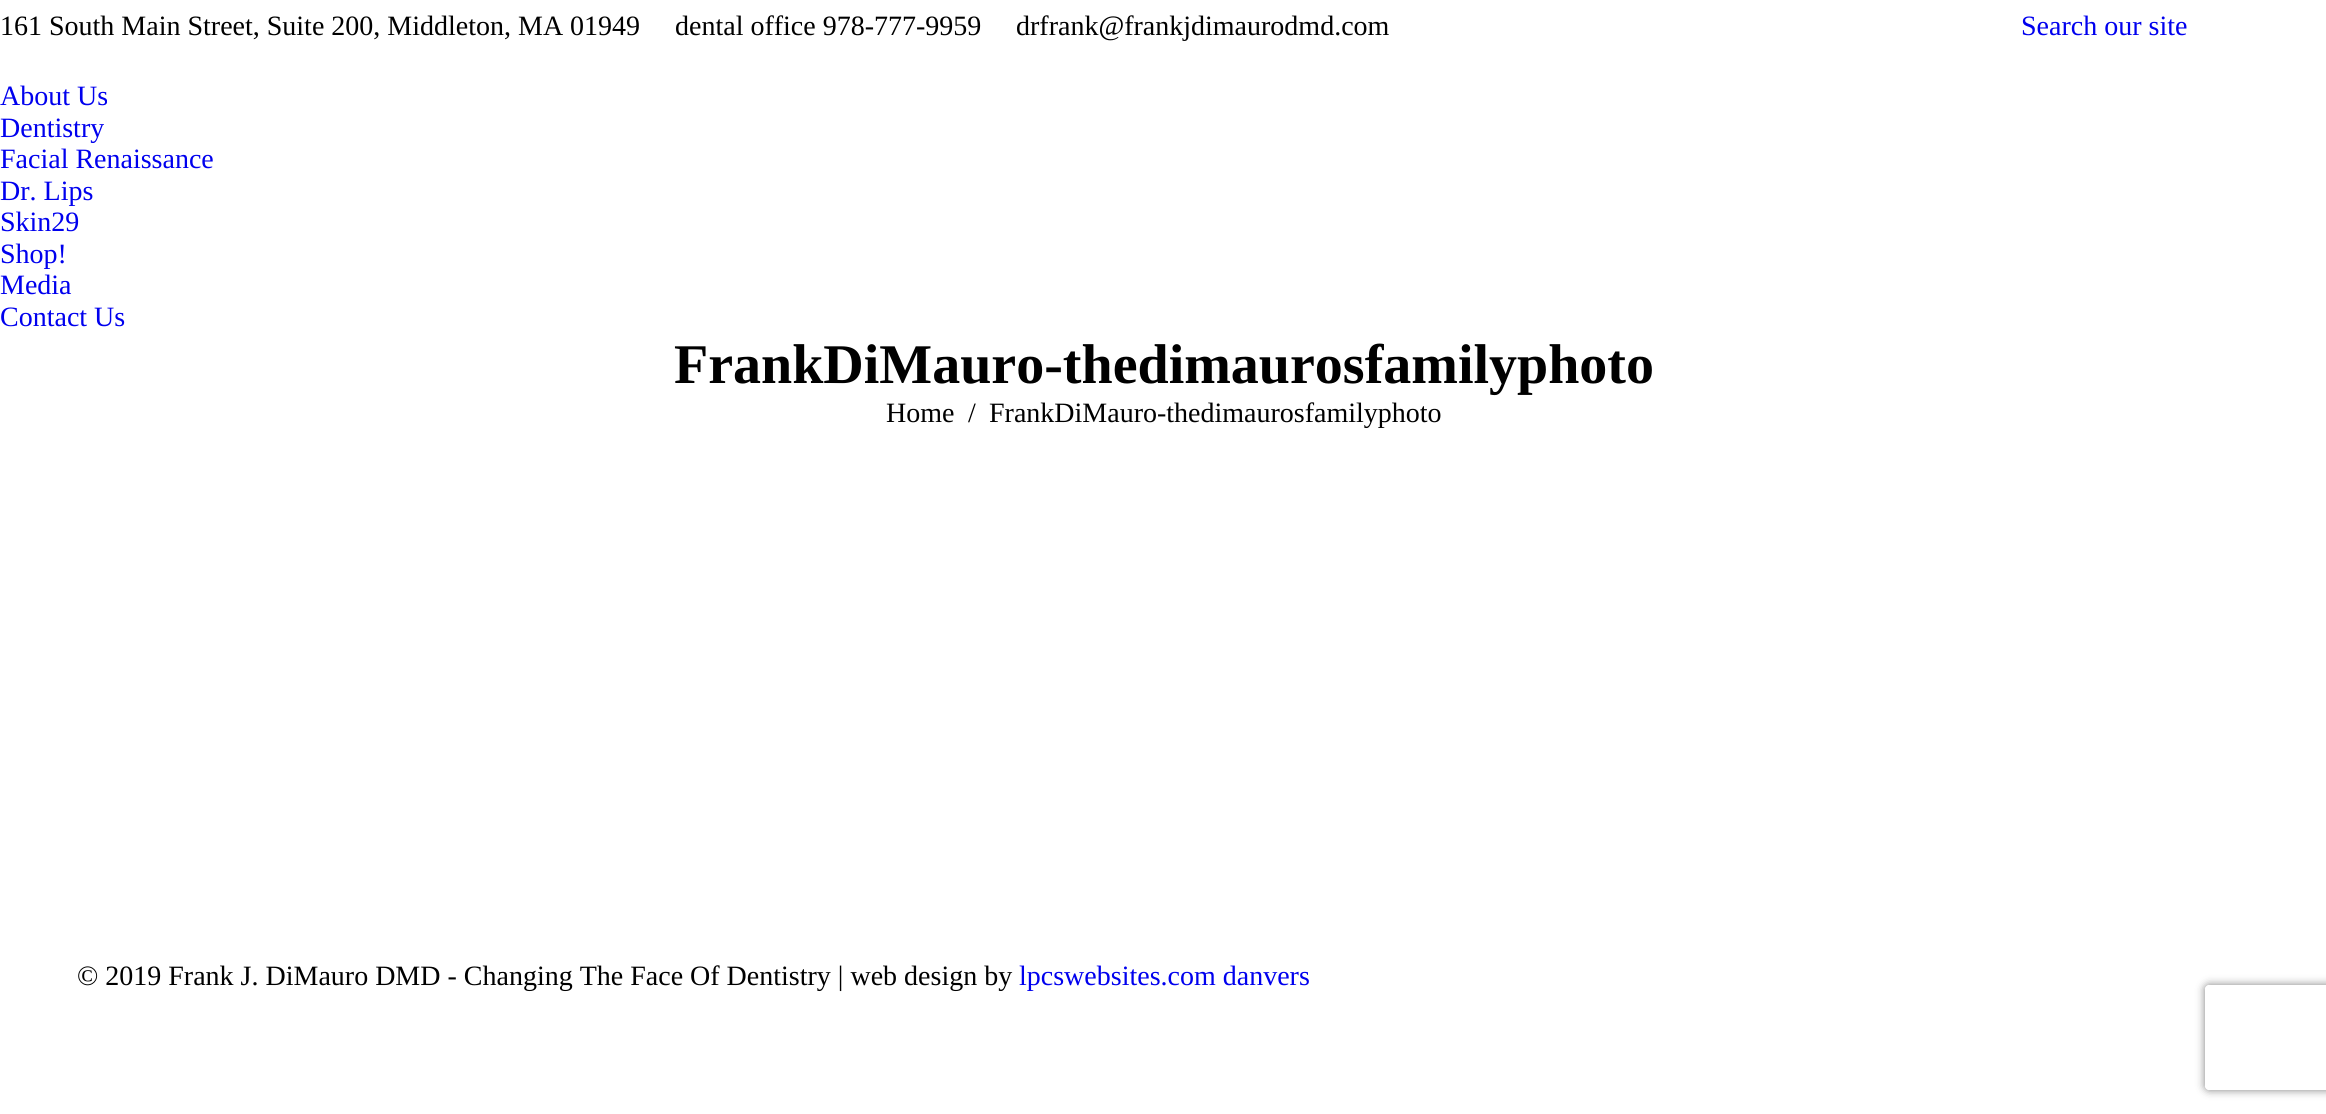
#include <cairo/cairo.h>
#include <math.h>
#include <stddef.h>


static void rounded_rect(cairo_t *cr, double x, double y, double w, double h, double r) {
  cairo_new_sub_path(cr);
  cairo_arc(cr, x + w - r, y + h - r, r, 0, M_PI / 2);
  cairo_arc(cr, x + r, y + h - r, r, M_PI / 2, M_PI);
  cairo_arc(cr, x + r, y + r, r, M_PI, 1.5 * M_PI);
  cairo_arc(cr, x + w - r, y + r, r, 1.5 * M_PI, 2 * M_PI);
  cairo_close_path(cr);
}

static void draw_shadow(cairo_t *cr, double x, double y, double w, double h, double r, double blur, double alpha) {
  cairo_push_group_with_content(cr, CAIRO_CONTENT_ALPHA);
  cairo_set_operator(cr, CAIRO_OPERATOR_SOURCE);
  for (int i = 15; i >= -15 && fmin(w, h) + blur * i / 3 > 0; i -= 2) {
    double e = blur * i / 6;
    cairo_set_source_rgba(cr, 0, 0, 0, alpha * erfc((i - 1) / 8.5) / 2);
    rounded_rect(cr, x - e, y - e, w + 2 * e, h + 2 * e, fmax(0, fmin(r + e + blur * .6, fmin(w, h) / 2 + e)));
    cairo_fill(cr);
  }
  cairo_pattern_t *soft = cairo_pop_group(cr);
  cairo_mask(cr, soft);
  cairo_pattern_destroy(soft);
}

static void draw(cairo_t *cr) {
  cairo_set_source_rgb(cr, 1, 1, 1);
  cairo_paint(cr);
  cairo_save(cr);
  cairo_set_fill_rule(cr, CAIRO_FILL_RULE_EVEN_ODD);
  cairo_new_path(cr);
  cairo_move_to(cr, 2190, 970);
  cairo_line_to(cr, 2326, 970);
  cairo_line_to(cr, 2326, 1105);
  cairo_line_to(cr, 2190, 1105);
  cairo_close_path(cr);
  cairo_move_to(cr, 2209, 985);
  cairo_line_to(cr, 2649, 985);
  cairo_curve_to(cr, 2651, 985, 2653, 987, 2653, 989);
  cairo_line_to(cr, 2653, 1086);
  cairo_curve_to(cr, 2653, 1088, 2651, 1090, 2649, 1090);
  cairo_line_to(cr, 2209, 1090);
  cairo_curve_to(cr, 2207, 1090, 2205, 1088, 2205, 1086);
  cairo_line_to(cr, 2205, 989);
  cairo_curve_to(cr, 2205, 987, 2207, 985, 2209, 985);
  cairo_close_path(cr);
  cairo_clip(cr);
  cairo_set_source_rgb(cr, 128 / 255.0, 128 / 255.0, 128 / 255.0);
  draw_shadow(cr, 2205, 985, 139, 105, 4, 4.5, 1);
  cairo_restore(cr);
  cairo_select_font_face(cr, "Liberation Serif", CAIRO_FONT_SLANT_NORMAL, CAIRO_FONT_WEIGHT_NORMAL);
  cairo_set_font_size(cr, 28);
  cairo_set_source_rgb(cr, 0, 0, 0);
  cairo_move_to(cr, 0, 35);
  cairo_show_text(cr, "161 South Main Street, Suite 200, Middleton, MA 01949");
  cairo_move_to(cr, 675, 35);
  cairo_show_text(cr, "dental office 978-777-9959");
  cairo_move_to(cr, 1016, 35);
  cairo_show_text(cr, "drfrank@frankjdimaurodmd.com");
  cairo_set_source_rgb(cr, 0, 0, 238 / 255.0);
  cairo_move_to(cr, 2021, 35);
  cairo_show_text(cr, "Search our site");
  cairo_move_to(cr, 0, 105);
  cairo_show_text(cr, "About Us");
  cairo_move_to(cr, 0, 137);
  cairo_show_text(cr, "Dentistry");
  cairo_move_to(cr, 0, 168);
  cairo_show_text(cr, "Facial Renaissance");
  cairo_move_to(cr, 0, 200);
  cairo_show_text(cr, "Dr. Lips");
  cairo_move_to(cr, 0, 231);
  cairo_show_text(cr, "Skin29");
  cairo_move_to(cr, 0, 263);
  cairo_show_text(cr, "Shop!");
  cairo_move_to(cr, 0, 294);
  cairo_show_text(cr, "Media");
  cairo_move_to(cr, 0, 326);
  cairo_show_text(cr, "Contact Us");
  cairo_select_font_face(cr, "Liberation Serif", CAIRO_FONT_SLANT_NORMAL, CAIRO_FONT_WEIGHT_BOLD);
  cairo_set_font_size(cr, 56);
  cairo_set_source_rgb(cr, 0, 0, 0);
  cairo_move_to(cr, 674, 383);
  cairo_show_text(cr, "FrankDiMauro-thedimaurosfamilyphoto");
  cairo_select_font_face(cr, "Liberation Serif", CAIRO_FONT_SLANT_NORMAL, CAIRO_FONT_WEIGHT_NORMAL);
  cairo_set_font_size(cr, 28);
  cairo_move_to(cr, 886, 422);
  cairo_show_text(cr, "Home");
  cairo_move_to(cr, 968, 422);
  cairo_show_text(cr, "/");
  cairo_move_to(cr, 989, 422);
  cairo_show_text(cr, "FrankDiMauro-thedimaurosfamilyphoto");
  cairo_move_to(cr, 77, 985);
  cairo_show_text(cr, "© 2019 Frank J. DiMauro DMD - Changing The Face Of Dentistry | web design by");
  cairo_set_source_rgb(cr, 0, 0, 238 / 255.0);
  cairo_move_to(cr, 1019, 985);
  cairo_show_text(cr, "lpcswebsites.com danvers");
}

int main(void) {
  cairo_surface_t *surface = cairo_image_surface_create(CAIRO_FORMAT_RGB24, 2326, 1114);
  cairo_t *cr = cairo_create(surface);
  cairo_font_options_t *options = cairo_font_options_create();
  cairo_font_options_set_hint_metrics(options, CAIRO_HINT_METRICS_OFF);
  cairo_font_options_set_hint_style(options, CAIRO_HINT_STYLE_NONE);
  cairo_set_font_options(cr, options);
  cairo_set_miter_limit(cr, 4);
  draw(cr);
  cairo_surface_write_to_png(surface, "out.png");
  cairo_font_options_destroy(options);
  cairo_destroy(cr);
  cairo_surface_destroy(surface);
  return 0;
}
